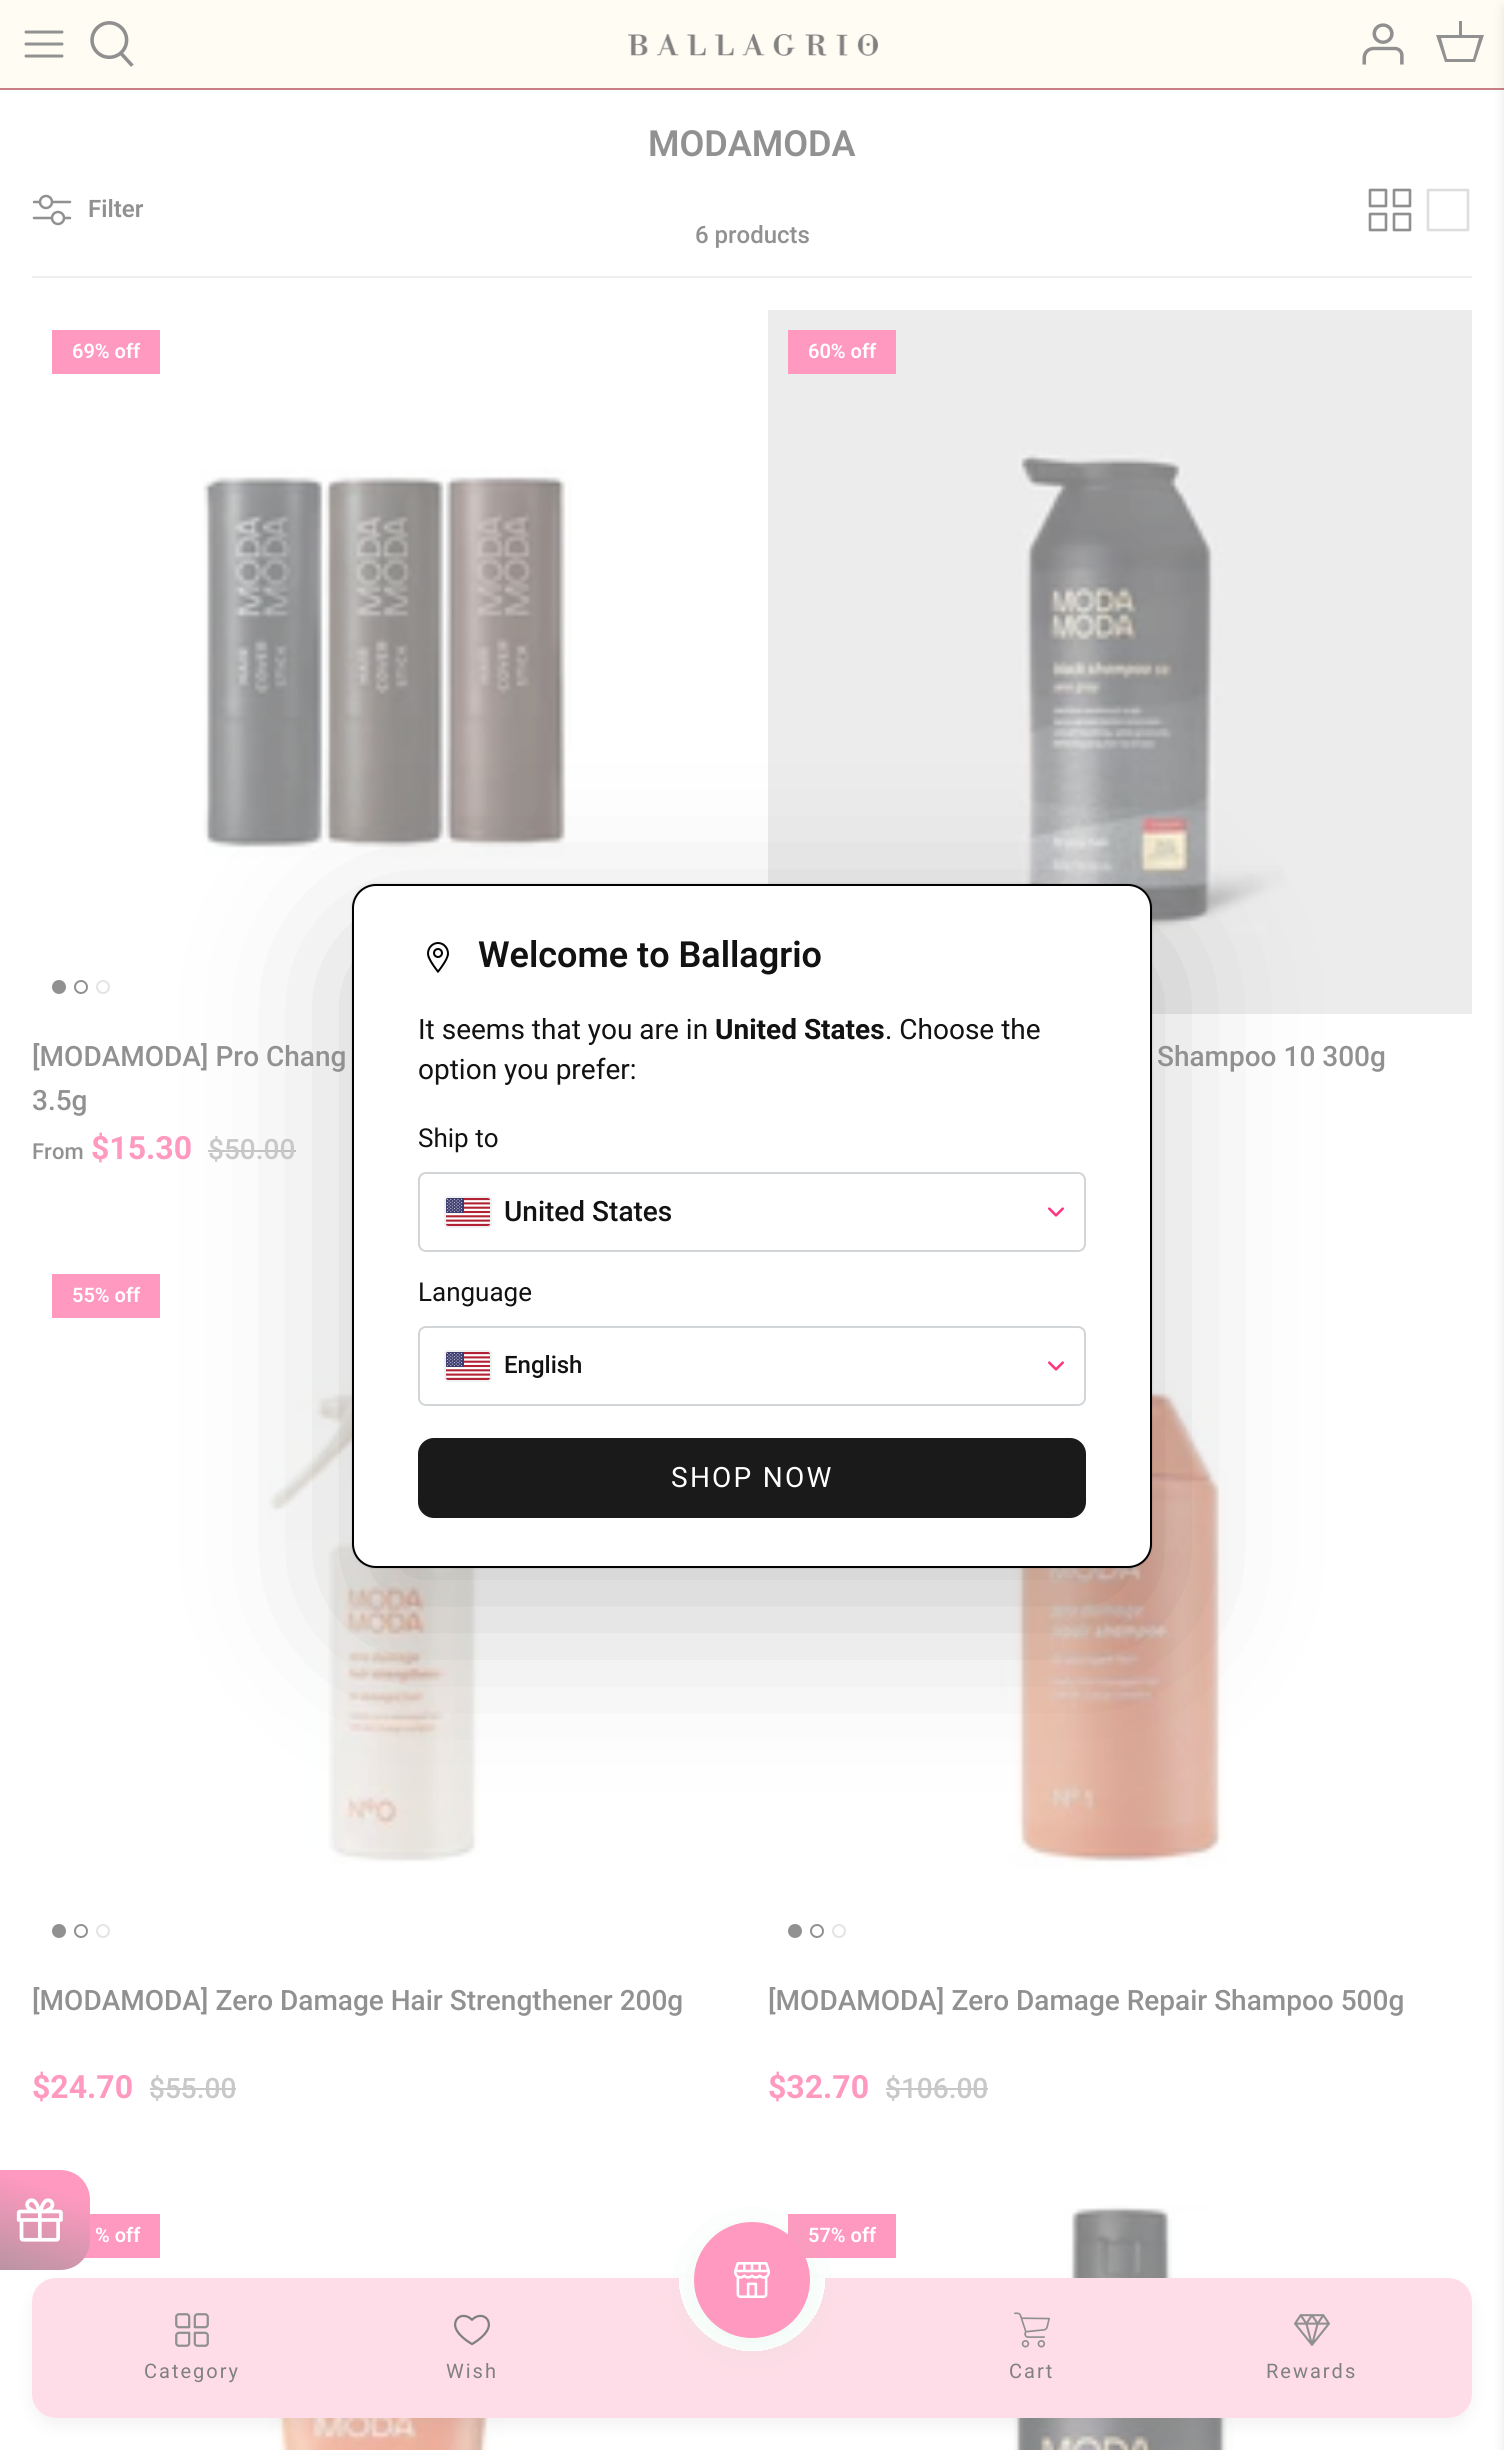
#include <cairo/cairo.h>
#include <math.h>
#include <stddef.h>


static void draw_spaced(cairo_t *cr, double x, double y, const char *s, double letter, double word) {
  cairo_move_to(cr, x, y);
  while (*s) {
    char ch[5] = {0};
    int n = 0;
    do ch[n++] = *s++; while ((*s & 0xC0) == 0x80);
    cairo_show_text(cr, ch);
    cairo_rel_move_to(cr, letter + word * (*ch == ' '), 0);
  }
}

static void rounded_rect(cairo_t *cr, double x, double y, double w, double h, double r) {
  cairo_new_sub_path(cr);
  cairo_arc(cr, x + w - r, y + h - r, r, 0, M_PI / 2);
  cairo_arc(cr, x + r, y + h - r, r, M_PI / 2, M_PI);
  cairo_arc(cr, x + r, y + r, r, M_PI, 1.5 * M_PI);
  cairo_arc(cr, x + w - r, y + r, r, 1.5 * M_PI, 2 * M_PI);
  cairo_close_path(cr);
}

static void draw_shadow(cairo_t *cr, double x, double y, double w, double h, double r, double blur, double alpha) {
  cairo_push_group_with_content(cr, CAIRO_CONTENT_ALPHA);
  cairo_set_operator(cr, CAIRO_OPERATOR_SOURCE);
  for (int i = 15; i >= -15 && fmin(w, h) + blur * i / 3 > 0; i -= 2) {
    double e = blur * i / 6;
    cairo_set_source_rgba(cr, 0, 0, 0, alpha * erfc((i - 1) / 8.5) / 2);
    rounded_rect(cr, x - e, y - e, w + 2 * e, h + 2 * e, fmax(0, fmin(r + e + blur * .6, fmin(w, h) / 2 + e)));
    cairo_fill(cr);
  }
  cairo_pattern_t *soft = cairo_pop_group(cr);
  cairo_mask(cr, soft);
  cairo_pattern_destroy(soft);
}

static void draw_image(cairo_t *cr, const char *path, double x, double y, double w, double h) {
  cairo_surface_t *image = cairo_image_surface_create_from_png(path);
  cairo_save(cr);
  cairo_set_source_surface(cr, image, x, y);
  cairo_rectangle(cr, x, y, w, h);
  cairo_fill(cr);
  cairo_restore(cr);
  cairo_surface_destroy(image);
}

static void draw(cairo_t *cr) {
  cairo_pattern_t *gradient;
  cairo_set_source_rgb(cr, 1, 1, 1);
  cairo_paint(cr);
  cairo_set_source_rgb(cr, 1, 252 / 255.0, 243 / 255.0);
  cairo_rectangle(cr, 0, 0, 1504, 88);
  cairo_fill(cr);
  cairo_set_source_rgb(cr, 200 / 255.0, 128 / 255.0, 134 / 255.0);
  cairo_rectangle(cr, 0, 88, 1504, 2);
  cairo_fill(cr);
  cairo_new_path(cr);
  cairo_move_to(cr, 26, 44);
  cairo_line_to(cr, 62, 44);
  cairo_move_to(cr, 26, 32);
  cairo_line_to(cr, 62, 32);
  cairo_move_to(cr, 26, 56);
  cairo_line_to(cr, 62, 56);
  cairo_set_source_rgb(cr, 145 / 255.0, 145 / 255.0, 145 / 255.0);
  cairo_set_line_width(cr, 3);
  cairo_set_line_cap(cr, CAIRO_LINE_CAP_ROUND);
  cairo_set_line_join(cr, CAIRO_LINE_JOIN_ROUND);
  cairo_stroke(cr);
  draw_image(cr, "images/1.png", 90, 21, 44, 46);
  draw_image(cr, "images/2.png", 628, 34, 250, 22);
  draw_image(cr, "images/3.png", 1362, 23, 42, 42);
  cairo_new_path(cr);
  cairo_move_to(cr, 1459, 35);
  cairo_line_to(cr, 1459, 21);
  cairo_line_to(cr, 1462, 21);
  cairo_line_to(cr, 1462, 35);
  cairo_line_to(cr, 1484, 35);
  cairo_line_to(cr, 1475, 62);
  cairo_line_to(cr, 1445, 62);
  cairo_line_to(cr, 1436, 35);
  cairo_close_path(cr);
  cairo_move_to(cr, 1441, 38);
  cairo_line_to(cr, 1447, 59);
  cairo_line_to(cr, 1473, 59);
  cairo_line_to(cr, 1479, 38);
  cairo_close_path(cr);
  cairo_fill(cr);
  cairo_set_source_rgb(cr, 238 / 255.0, 238 / 255.0, 238 / 255.0);
  cairo_rectangle(cr, 32, 276, 1440, 2);
  cairo_fill(cr);
  cairo_new_path(cr);
  cairo_move_to(cr, 34, 202);
  cairo_line_to(cr, 70, 202);
  cairo_move_to(cr, 34, 218);
  cairo_line_to(cr, 70, 218);
  cairo_set_source_rgb(cr, 145 / 255.0, 145 / 255.0, 145 / 255.0);
  cairo_set_line_width(cr, 2.5);
  cairo_stroke(cr);
  cairo_set_source_rgb(cr, 1, 1, 1);
  cairo_arc(cr, 46, 202, 6, 0, 2 * M_PI);
  cairo_fill_preserve(cr);
  cairo_set_source_rgb(cr, 145 / 255.0, 145 / 255.0, 145 / 255.0);
  cairo_set_line_cap(cr, CAIRO_LINE_CAP_BUTT);
  cairo_set_line_join(cr, CAIRO_LINE_JOIN_MITER);
  cairo_stroke(cr);
  cairo_set_source_rgb(cr, 1, 1, 1);
  cairo_arc(cr, 58, 218, 6, 0, 2 * M_PI);
  cairo_fill_preserve(cr);
  cairo_set_source_rgb(cr, 145 / 255.0, 145 / 255.0, 145 / 255.0);
  cairo_stroke(cr);
  draw_image(cr, "images/4.png", 1368, 188, 44, 44);
  cairo_new_path(cr);
  cairo_move_to(cr, 1428, 190);
  cairo_line_to(cr, 1468, 190);
  cairo_line_to(cr, 1468, 230);
  cairo_line_to(cr, 1428, 230);
  cairo_line_to(cr, 1428, 190);
  cairo_set_source_rgb(cr, 222 / 255.0, 222 / 255.0, 222 / 255.0);
  cairo_set_line_width(cr, 2.6);
  cairo_set_line_cap(cr, CAIRO_LINE_CAP_ROUND);
  cairo_set_line_join(cr, CAIRO_LINE_JOIN_ROUND);
  cairo_stroke(cr);
  cairo_set_source_rgb(cr, 1, 153 / 255.0, 191 / 255.0);
  cairo_rectangle(cr, 52, 330, 108, 44);
  cairo_fill(cr);
  draw_image(cr, "images/5.png", 202, 468, 370, 390);
  cairo_set_source_rgb(cr, 145 / 255.0, 145 / 255.0, 145 / 255.0);
  cairo_arc(cr, 59, 987, 6, 0, 2 * M_PI);
  cairo_fill_preserve(cr);
  cairo_set_line_width(cr, 2);
  cairo_set_line_cap(cr, CAIRO_LINE_CAP_BUTT);
  cairo_set_line_join(cr, CAIRO_LINE_JOIN_MITER);
  cairo_stroke(cr);
  cairo_arc(cr, 81, 987, 6, 0, 2 * M_PI);
  cairo_stroke(cr);
  cairo_arc(cr, 103, 987, 6, 0, 2 * M_PI);
  cairo_set_source_rgb(cr, 228 / 255.0, 228 / 255.0, 228 / 255.0);
  cairo_stroke(cr);
  cairo_set_source_rgb(cr, 200 / 255.0, 200 / 255.0, 200 / 255.0);
  cairo_rectangle(cr, 208, 1150, 88, 2);
  cairo_fill(cr);
  draw_image(cr, "images/6.png", 768, 310, 704, 704);
  cairo_set_source_rgb(cr, 1, 153 / 255.0, 191 / 255.0);
  cairo_rectangle(cr, 788, 330, 108, 44);
  cairo_fill(cr);
  cairo_rectangle(cr, 52, 1274, 108, 44);
  cairo_fill(cr);
  draw_image(cr, "images/7.png", 267, 1378, 213, 487);
  cairo_set_source_rgb(cr, 145 / 255.0, 145 / 255.0, 145 / 255.0);
  cairo_arc(cr, 59, 1931, 6, 0, 2 * M_PI);
  cairo_fill_preserve(cr);
  cairo_stroke(cr);
  cairo_arc(cr, 81, 1931, 6, 0, 2 * M_PI);
  cairo_stroke(cr);
  cairo_arc(cr, 103, 1931, 6, 0, 2 * M_PI);
  cairo_set_source_rgb(cr, 228 / 255.0, 228 / 255.0, 228 / 255.0);
  cairo_stroke(cr);
  cairo_set_source_rgb(cr, 200 / 255.0, 200 / 255.0, 200 / 255.0);
  cairo_rectangle(cr, 150, 2088, 86, 2);
  cairo_fill(cr);
  draw_image(cr, "images/8.png", 999, 1380, 229, 490);
  cairo_set_source_rgb(cr, 145 / 255.0, 145 / 255.0, 145 / 255.0);
  cairo_arc(cr, 795, 1931, 6, 0, 2 * M_PI);
  cairo_fill_preserve(cr);
  cairo_stroke(cr);
  cairo_arc(cr, 817, 1931, 6, 0, 2 * M_PI);
  cairo_stroke(cr);
  cairo_arc(cr, 839, 1931, 6, 0, 2 * M_PI);
  cairo_set_source_rgb(cr, 228 / 255.0, 228 / 255.0, 228 / 255.0);
  cairo_stroke(cr);
  cairo_set_source_rgb(cr, 200 / 255.0, 200 / 255.0, 200 / 255.0);
  cairo_rectangle(cr, 886, 2088, 102, 2);
  cairo_fill(cr);
  cairo_set_source_rgb(cr, 1, 153 / 255.0, 191 / 255.0);
  cairo_rectangle(cr, 84, 2214, 76, 44);
  cairo_fill(cr);
  draw_image(cr, "images/9.png", 260, 2418, 246, 32);
  cairo_rectangle(cr, 788, 2214, 108, 44);
  cairo_fill(cr);
  draw_image(cr, "images/10.png", 1013, 2205, 220, 245);
  cairo_set_source_rgb(cr, 0, 0, 0);
  draw_shadow(cr, 1504, 8, 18, 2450, 0, 6, 0.1);
  draw_shadow(cr, 352, 936, 800, 684, 24, 80, 0.2);
  draw_shadow(cr, 352, 884, 800, 684, 24, 1, 0.2);
  cairo_set_source_rgb(cr, 1, 1, 1);
  rounded_rect(cr, 353, 885, 798, 682, 23);
  cairo_fill_preserve(cr);
  cairo_set_source_rgb(cr, 0, 0, 0);
  cairo_stroke(cr);
  draw_image(cr, "images/11.png", 427, 942, 22, 31);
  rounded_rect(cr, 419, 1173, 666, 78, 7);
  cairo_set_source_rgb(cr, 210 / 255.0, 213 / 255.0, 216 / 255.0);
  cairo_stroke(cr);
  rounded_rect(cr, 445, 1197, 46, 30, 3);
  cairo_set_source_rgb(cr, 240 / 255.0, 241 / 255.0, 242 / 255.0);
  cairo_stroke(cr);
  draw_image(cr, "images/12.png", 446, 1198, 44, 28);
  draw_image(cr, "images/13.png", 1048, 1207, 16, 10);
  rounded_rect(cr, 419, 1327, 666, 78, 7);
  cairo_set_source_rgb(cr, 210 / 255.0, 213 / 255.0, 216 / 255.0);
  cairo_stroke(cr);
  rounded_rect(cr, 445, 1351, 46, 30, 3);
  cairo_set_source_rgb(cr, 240 / 255.0, 241 / 255.0, 242 / 255.0);
  cairo_stroke(cr);
  draw_image(cr, "images/12.png", 446, 1352, 44, 28);
  draw_image(cr, "images/13.png", 1048, 1361, 16, 10);
  cairo_set_source_rgb(cr, 26 / 255.0, 26 / 255.0, 26 / 255.0);
  rounded_rect(cr, 418, 1438, 668, 80, 16);
  cairo_fill(cr);
  cairo_save(cr);
  cairo_set_fill_rule(cr, CAIRO_FILL_RULE_EVEN_ODD);
  cairo_new_path(cr);
  cairo_move_to(cr, 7, 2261);
  cairo_line_to(cr, 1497, 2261);
  cairo_line_to(cr, 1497, 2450);
  cairo_line_to(cr, 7, 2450);
  cairo_close_path(cr);
  cairo_move_to(cr, 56, 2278);
  cairo_line_to(cr, 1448, 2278);
  cairo_curve_to(cr, 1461.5, 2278, 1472, 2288.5, 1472, 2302);
  cairo_line_to(cr, 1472, 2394);
  cairo_curve_to(cr, 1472, 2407.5, 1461.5, 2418, 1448, 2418);
  cairo_line_to(cr, 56, 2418);
  cairo_curve_to(cr, 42.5, 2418, 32, 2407.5, 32, 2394);
  cairo_line_to(cr, 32, 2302);
  cairo_curve_to(cr, 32, 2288.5, 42.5, 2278, 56, 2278);
  cairo_close_path(cr);
  cairo_clip(cr);
  cairo_set_source_rgb(cr, 128 / 255.0, 128 / 255.0, 128 / 255.0);
  draw_shadow(cr, 32, 2286, 1440, 140, 24, 8, 0.1);
  cairo_restore(cr);
  gradient = cairo_pattern_create_linear(61, 2160, 1.5, 2328);
  cairo_pattern_add_color_stop_rgba(gradient, 0.17, 1, 153 / 255.0, 191 / 255.0, 1);
  cairo_pattern_add_color_stop_rgba(gradient, 1, 145 / 255.0, 145 / 255.0, 145 / 255.0, 1);
  cairo_set_source(cr, gradient);
  cairo_pattern_destroy(gradient);
  cairo_new_path(cr);
  cairo_move_to(cr, 90, 2200);
  cairo_line_to(cr, 90, 2240);
  cairo_curve_to(cr, 90, 2257, 77, 2270, 60, 2270);
  cairo_line_to(cr, -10, 2270);
  cairo_line_to(cr, -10, 2170);
  cairo_line_to(cr, 60, 2170);
  cairo_curve_to(cr, 77, 2170, 90, 2183, 90, 2200);
  cairo_close_path(cr);
  cairo_fill(cr);
  draw_image(cr, "images/14.png", 16, 2198, 47, 44);
  gradient = cairo_pattern_create_radial(752, 2278, 0, 752, 2278, 733);
  cairo_pattern_add_color_stop_rgba(gradient, 0.1, 1, 221 / 255.0, 232 / 255.0, 0);
  cairo_pattern_add_color_stop_rgba(gradient, 0.1, 1, 221 / 255.0, 232 / 255.0, 1);
  cairo_set_source(cr, gradient);
  cairo_pattern_destroy(gradient);
  rounded_rect(cr, 32, 2278, 1440, 140, 24);
  cairo_fill(cr);
  draw_image(cr, "images/15.png", 175, 2313, 34, 34);
  draw_image(cr, "images/16.png", 454, 2314, 36, 32);
  cairo_set_source_rgb(cr, 128 / 255.0, 213 / 255.0, 173 / 255.0);
  draw_shadow(cr, 694, 2230, 116, 116, 58, 20, 0.15);
  draw_image(cr, "images/18.png", 1014, 2312, 36, 36);
  draw_image(cr, "images/19.png", 1294, 2314, 36, 32);
  cairo_select_font_face(cr, "Roboto SemiBold", CAIRO_FONT_SLANT_NORMAL, CAIRO_FONT_WEIGHT_NORMAL);
  cairo_set_font_size(cr, 36);
  cairo_set_source_rgb(cr, 145 / 255.0, 145 / 255.0, 145 / 255.0);
  cairo_move_to(cr, 648, 156);
  cairo_show_text(cr, "MODAMODA");
  cairo_set_font_size(cr, 24);
  cairo_move_to(cr, 88, 217);
  cairo_show_text(cr, "Filter");
  cairo_select_font_face(cr, "Roboto Medium", CAIRO_FONT_SLANT_NORMAL, CAIRO_FONT_WEIGHT_NORMAL);
  cairo_move_to(cr, 695, 243);
  cairo_show_text(cr, "6 products");
  cairo_select_font_face(cr, "Roboto SemiBold", CAIRO_FONT_SLANT_NORMAL, CAIRO_FONT_WEIGHT_NORMAL);
  cairo_set_font_size(cr, 20);
  cairo_set_source_rgb(cr, 1, 1, 1);
  cairo_move_to(cr, 72, 358);
  cairo_show_text(cr, "69% off");
  cairo_select_font_face(cr, "Roboto Medium", CAIRO_FONT_SLANT_NORMAL, CAIRO_FONT_WEIGHT_NORMAL);
  cairo_set_font_size(cr, 28);
  cairo_set_source_rgb(cr, 145 / 255.0, 145 / 255.0, 145 / 255.0);
  cairo_move_to(cr, 32, 1066);
  cairo_show_text(cr, "[MODAMODA] Pro Chang");
  cairo_move_to(cr, 32, 1110);
  cairo_show_text(cr, "3.5g");
  cairo_set_font_size(cr, 22);
  cairo_move_to(cr, 32, 1159);
  cairo_show_text(cr, "From");
  cairo_select_font_face(cr, "Roboto", CAIRO_FONT_SLANT_NORMAL, CAIRO_FONT_WEIGHT_BOLD);
  cairo_set_font_size(cr, 32);
  cairo_set_source_rgb(cr, 1, 153 / 255.0, 191 / 255.0);
  cairo_move_to(cr, 91, 1159);
  cairo_show_text(cr, "$15.30");
  cairo_select_font_face(cr, "Roboto Medium", CAIRO_FONT_SLANT_NORMAL, CAIRO_FONT_WEIGHT_NORMAL);
  cairo_set_font_size(cr, 28);
  cairo_set_source_rgb(cr, 200 / 255.0, 200 / 255.0, 200 / 255.0);
  cairo_move_to(cr, 208, 1159);
  cairo_show_text(cr, "$50.00");
  cairo_select_font_face(cr, "Roboto SemiBold", CAIRO_FONT_SLANT_NORMAL, CAIRO_FONT_WEIGHT_NORMAL);
  cairo_set_font_size(cr, 20);
  cairo_set_source_rgb(cr, 1, 1, 1);
  cairo_move_to(cr, 808, 358);
  cairo_show_text(cr, "60% off");
  cairo_select_font_face(cr, "Roboto Medium", CAIRO_FONT_SLANT_NORMAL, CAIRO_FONT_WEIGHT_NORMAL);
  cairo_set_font_size(cr, 28);
  cairo_set_source_rgb(cr, 145 / 255.0, 145 / 255.0, 145 / 255.0);
  cairo_move_to(cr, 1157, 1066);
  cairo_show_text(cr, "Shampoo 10 300g");
  cairo_select_font_face(cr, "Roboto SemiBold", CAIRO_FONT_SLANT_NORMAL, CAIRO_FONT_WEIGHT_NORMAL);
  cairo_set_font_size(cr, 20);
  cairo_set_source_rgb(cr, 1, 1, 1);
  cairo_move_to(cr, 72, 1302);
  cairo_show_text(cr, "55% off");
  cairo_select_font_face(cr, "Roboto Medium", CAIRO_FONT_SLANT_NORMAL, CAIRO_FONT_WEIGHT_NORMAL);
  cairo_set_font_size(cr, 28);
  cairo_set_source_rgb(cr, 145 / 255.0, 145 / 255.0, 145 / 255.0);
  cairo_move_to(cr, 32, 2010);
  cairo_show_text(cr, "[MODAMODA] Zero Damage Hair Strengthener 200g");
  cairo_select_font_face(cr, "Roboto", CAIRO_FONT_SLANT_NORMAL, CAIRO_FONT_WEIGHT_BOLD);
  cairo_set_font_size(cr, 32);
  cairo_set_source_rgb(cr, 1, 153 / 255.0, 191 / 255.0);
  cairo_move_to(cr, 32, 2098);
  cairo_show_text(cr, "$24.70");
  cairo_select_font_face(cr, "Roboto Medium", CAIRO_FONT_SLANT_NORMAL, CAIRO_FONT_WEIGHT_NORMAL);
  cairo_set_font_size(cr, 28);
  cairo_set_source_rgb(cr, 200 / 255.0, 200 / 255.0, 200 / 255.0);
  cairo_move_to(cr, 149, 2098);
  cairo_show_text(cr, "$55.00");
  cairo_set_source_rgb(cr, 145 / 255.0, 145 / 255.0, 145 / 255.0);
  cairo_move_to(cr, 768, 2010);
  cairo_show_text(cr, "[MODAMODA] Zero Damage Repair Shampoo 500g");
  cairo_select_font_face(cr, "Roboto", CAIRO_FONT_SLANT_NORMAL, CAIRO_FONT_WEIGHT_BOLD);
  cairo_set_font_size(cr, 32);
  cairo_set_source_rgb(cr, 1, 153 / 255.0, 191 / 255.0);
  cairo_move_to(cr, 768, 2098);
  cairo_show_text(cr, "$32.70");
  cairo_select_font_face(cr, "Roboto Medium", CAIRO_FONT_SLANT_NORMAL, CAIRO_FONT_WEIGHT_NORMAL);
  cairo_set_font_size(cr, 28);
  cairo_set_source_rgb(cr, 200 / 255.0, 200 / 255.0, 200 / 255.0);
  cairo_move_to(cr, 885, 2098);
  cairo_show_text(cr, "$106.00");
  cairo_select_font_face(cr, "Roboto SemiBold", CAIRO_FONT_SLANT_NORMAL, CAIRO_FONT_WEIGHT_NORMAL);
  cairo_set_font_size(cr, 20);
  cairo_set_source_rgb(cr, 1, 1, 1);
  cairo_move_to(cr, 95, 2242);
  cairo_show_text(cr, "% off");
  cairo_move_to(cr, 808, 2242);
  cairo_show_text(cr, "57% off");
  cairo_set_font_size(cr, 36);
  cairo_set_source_rgb(cr, 18 / 255.0, 18 / 255.0, 18 / 255.0);
  cairo_move_to(cr, 478, 967);
  cairo_show_text(cr, "Welcome to Ballagrio");
  cairo_select_font_face(cr, "Roboto", CAIRO_FONT_SLANT_NORMAL, CAIRO_FONT_WEIGHT_NORMAL);
  cairo_set_font_size(cr, 28);
  cairo_move_to(cr, 418, 1039);
  cairo_show_text(cr, "It seems that you are in");
  cairo_select_font_face(cr, "Roboto", CAIRO_FONT_SLANT_NORMAL, CAIRO_FONT_WEIGHT_BOLD);
  cairo_move_to(cr, 715, 1039);
  cairo_show_text(cr, "United States");
  cairo_select_font_face(cr, "Roboto", CAIRO_FONT_SLANT_NORMAL, CAIRO_FONT_WEIGHT_NORMAL);
  cairo_move_to(cr, 885, 1039);
  cairo_show_text(cr, ". Choose the");
  cairo_move_to(cr, 418, 1079);
  cairo_show_text(cr, "option you prefer:");
  cairo_set_font_size(cr, 26);
  cairo_move_to(cr, 418, 1147);
  cairo_show_text(cr, "Ship to");
  cairo_select_font_face(cr, "Roboto Medium", CAIRO_FONT_SLANT_NORMAL, CAIRO_FONT_WEIGHT_NORMAL);
  cairo_set_font_size(cr, 28);
  cairo_move_to(cr, 504, 1221);
  cairo_show_text(cr, "United States");
  cairo_select_font_face(cr, "Roboto", CAIRO_FONT_SLANT_NORMAL, CAIRO_FONT_WEIGHT_NORMAL);
  cairo_set_font_size(cr, 26);
  cairo_move_to(cr, 418, 1301);
  cairo_show_text(cr, "Language");
  cairo_select_font_face(cr, "Roboto Medium", CAIRO_FONT_SLANT_NORMAL, CAIRO_FONT_WEIGHT_NORMAL);
  cairo_set_font_size(cr, 24);
  cairo_move_to(cr, 504, 1373);
  cairo_show_text(cr, "English");
  cairo_select_font_face(cr, "Roboto", CAIRO_FONT_SLANT_NORMAL, CAIRO_FONT_WEIGHT_NORMAL);
  cairo_set_font_size(cr, 28);
  cairo_set_source_rgb(cr, 1, 1, 1);
  draw_spaced(cr, 671, 1487, "SHOP NOW", 2.25, 0);
  cairo_set_font_size(cr, 20);
  cairo_set_source_rgb(cr, 128 / 255.0, 128 / 255.0, 128 / 255.0);
  draw_spaced(cr, 144, 2378, "Category", 2, 0);
  draw_spaced(cr, 446, 2378, "Wish", 2, 0);
  cairo_set_source_rgb(cr, 1, 153 / 255.0, 191 / 255.0);
  cairo_new_path(cr);
  cairo_arc(cr, 752, 2280, 58, 0, 2 * M_PI);
  cairo_fill(cr);
  draw_image(cr, "images/17.png", 734, 2262, 36, 36);
  cairo_set_source_rgb(cr, 128 / 255.0, 128 / 255.0, 128 / 255.0);
  draw_spaced(cr, 1009, 2378, "Cart", 2, 0);
  draw_spaced(cr, 1266, 2378, "Rewards", 2, 0);
}

int main(void) {
  cairo_surface_t *surface = cairo_image_surface_create(CAIRO_FORMAT_RGB24, 1504, 2450);
  cairo_t *cr = cairo_create(surface);
  cairo_font_options_t *options = cairo_font_options_create();
  cairo_font_options_set_hint_metrics(options, CAIRO_HINT_METRICS_OFF);
  cairo_font_options_set_hint_style(options, CAIRO_HINT_STYLE_NONE);
  cairo_set_font_options(cr, options);
  cairo_set_miter_limit(cr, 4);
  draw(cr);
  cairo_surface_write_to_png(surface, "out.png");
  cairo_font_options_destroy(options);
  cairo_destroy(cr);
  cairo_surface_destroy(surface);
  return 0;
}
